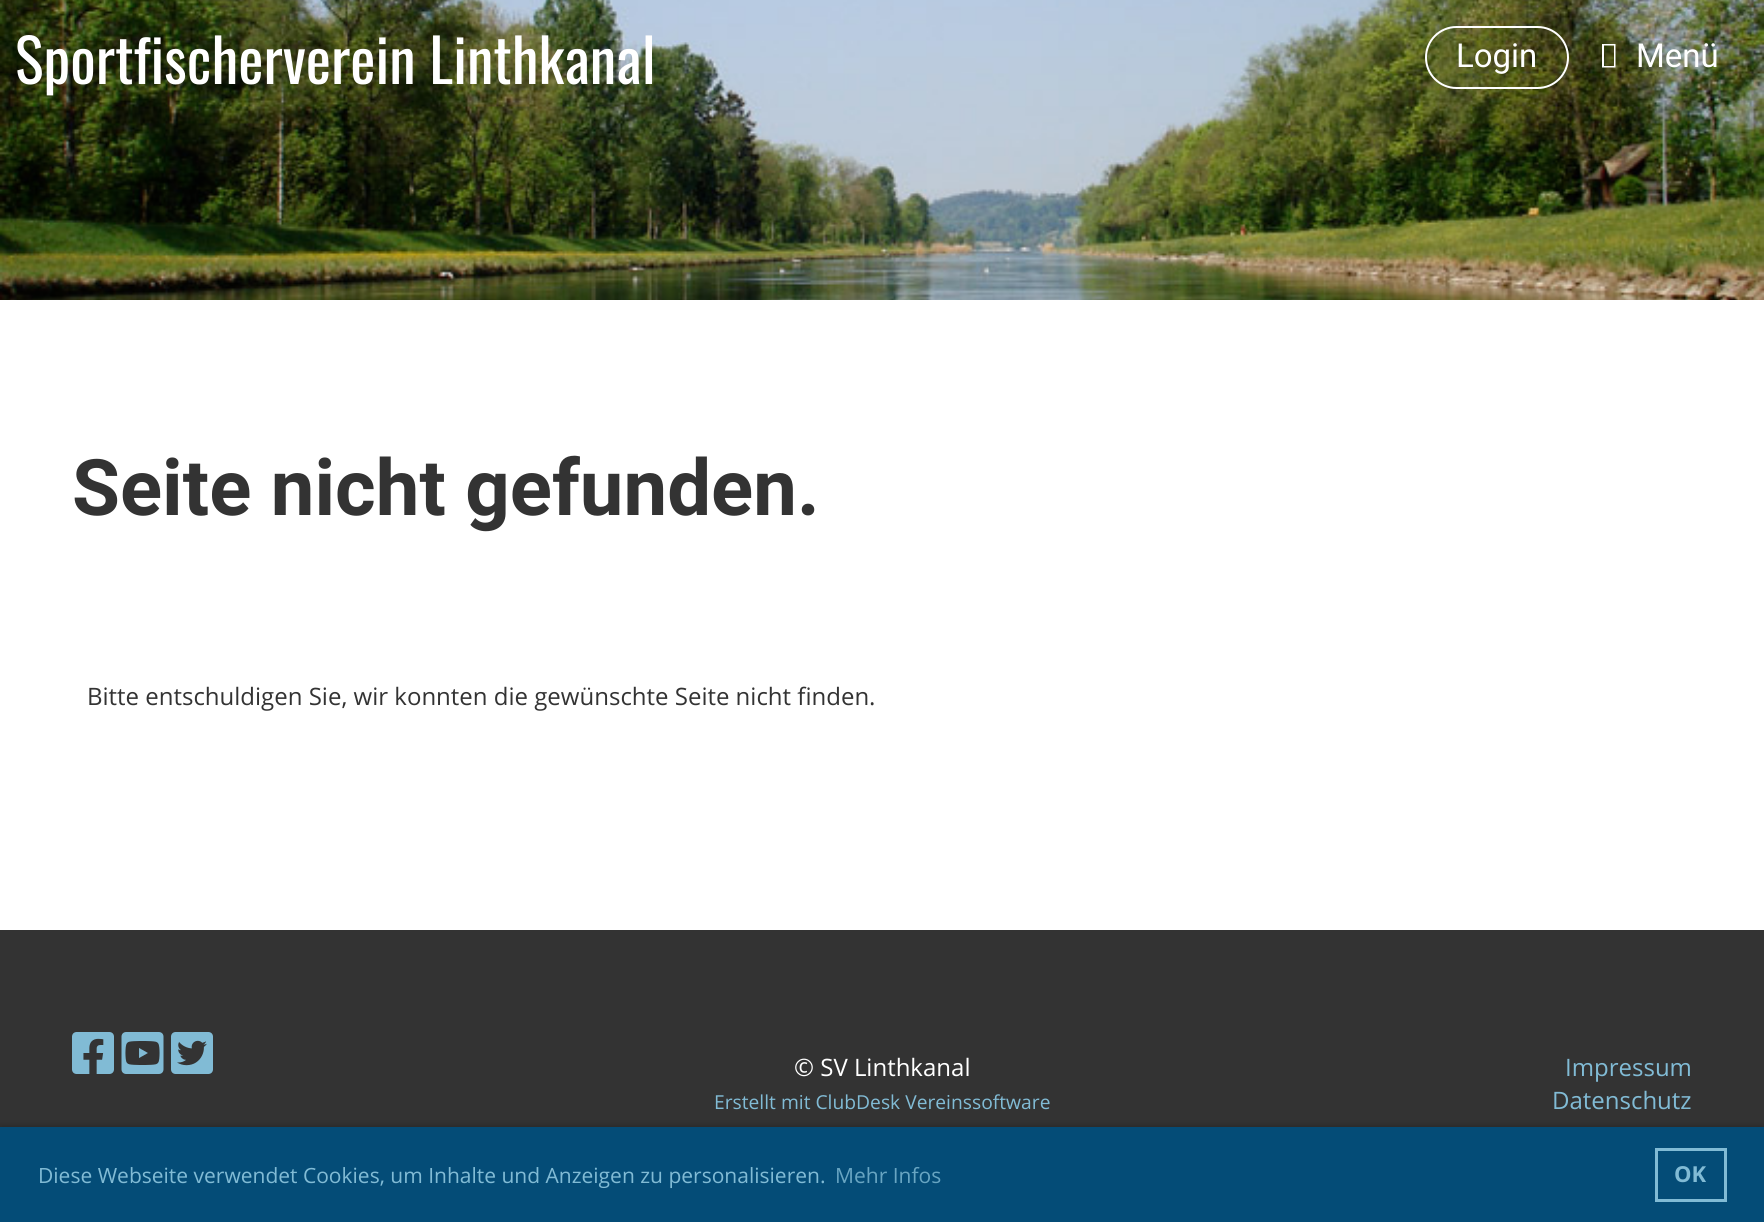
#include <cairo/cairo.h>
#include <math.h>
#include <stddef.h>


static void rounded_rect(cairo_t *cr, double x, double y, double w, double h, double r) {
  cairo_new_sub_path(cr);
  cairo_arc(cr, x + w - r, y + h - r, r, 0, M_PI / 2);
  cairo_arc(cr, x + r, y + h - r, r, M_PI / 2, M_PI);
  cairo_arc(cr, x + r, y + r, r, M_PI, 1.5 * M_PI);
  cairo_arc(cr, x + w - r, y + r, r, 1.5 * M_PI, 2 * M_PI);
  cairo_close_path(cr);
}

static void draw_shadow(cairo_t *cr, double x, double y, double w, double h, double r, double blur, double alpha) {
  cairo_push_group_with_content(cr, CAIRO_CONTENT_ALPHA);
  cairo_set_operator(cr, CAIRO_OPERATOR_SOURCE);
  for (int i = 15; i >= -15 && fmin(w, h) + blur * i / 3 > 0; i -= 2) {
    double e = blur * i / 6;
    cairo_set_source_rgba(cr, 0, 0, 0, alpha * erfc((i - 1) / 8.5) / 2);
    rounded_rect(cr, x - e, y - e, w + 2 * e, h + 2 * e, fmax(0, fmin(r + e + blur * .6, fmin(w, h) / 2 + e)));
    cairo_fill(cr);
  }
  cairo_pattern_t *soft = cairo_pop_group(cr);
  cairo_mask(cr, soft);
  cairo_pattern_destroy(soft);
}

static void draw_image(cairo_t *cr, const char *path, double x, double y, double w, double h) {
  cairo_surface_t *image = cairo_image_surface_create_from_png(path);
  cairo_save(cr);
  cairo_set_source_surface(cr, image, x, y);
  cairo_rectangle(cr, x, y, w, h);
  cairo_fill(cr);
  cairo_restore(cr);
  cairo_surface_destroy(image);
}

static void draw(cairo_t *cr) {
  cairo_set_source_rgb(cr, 1, 1, 1);
  cairo_paint(cr);
  draw_image(cr, "images/1.png", 0, 0, 1764, 300);
  rounded_rect(cr, 1426, 27, 142, 61, 30.5);
  cairo_set_source_rgb(cr, 1, 1, 1);
  cairo_stroke(cr);
  cairo_new_path(cr);
  cairo_move_to(cr, 1602, 67.5);
  cairo_line_to(cr, 1602, 44);
  cairo_line_to(cr, 1615.5, 44);
  cairo_line_to(cr, 1615.5, 67.5);
  cairo_close_path(cr);
  cairo_move_to(cr, 1604, 66);
  cairo_line_to(cr, 1614, 66);
  cairo_line_to(cr, 1614, 45.5);
  cairo_line_to(cr, 1604, 45.5);
  cairo_close_path(cr);
  cairo_fill(cr);
  cairo_set_source_rgb(cr, 51 / 255.0, 51 / 255.0, 51 / 255.0);
  cairo_rectangle(cr, 0, 930, 1764, 197);
  cairo_fill(cr);
  draw_image(cr, "images/2.png", 72, 1032, 42, 42);
  draw_image(cr, "images/3.png", 121, 1032, 43, 42);
  draw_image(cr, "images/4.png", 171, 1032, 42, 42);
  cairo_set_source_rgb(cr, 0, 0, 0);
  draw_shadow(cr, 0, 1127, 1764, 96, 0, 4, 0.3);
  cairo_set_source_rgb(cr, 4 / 255.0, 76 / 255.0, 119 / 255.0);
  cairo_rectangle(cr, 0, 1127, 1764, 95);
  cairo_fill(cr);
  cairo_rectangle(cr, 1656.5, 1149.5, 69, 51);
  cairo_set_source_rgb(cr, 129 / 255.0, 187 / 255.0, 213 / 255.0);
  cairo_set_line_width(cr, 3);
  cairo_stroke(cr);
  cairo_select_font_face(cr, "Oswald", CAIRO_FONT_SLANT_NORMAL, CAIRO_FONT_WEIGHT_NORMAL);
  cairo_set_font_size(cr, 60);
  cairo_set_source_rgb(cr, 1, 1, 1);
  cairo_move_to(cr, 15, 84);
  cairo_show_text(cr, "Sportfischerverein Linthkanal");
  cairo_select_font_face(cr, "Roboto", CAIRO_FONT_SLANT_NORMAL, CAIRO_FONT_WEIGHT_NORMAL);
  cairo_set_font_size(cr, 33);
  cairo_move_to(cr, 1456, 67);
  cairo_show_text(cr, "Login");
  cairo_move_to(cr, 1636, 67);
  cairo_show_text(cr, "Menü");
  cairo_select_font_face(cr, "Roboto", CAIRO_FONT_SLANT_NORMAL, CAIRO_FONT_WEIGHT_BOLD);
  cairo_set_font_size(cr, 78);
  cairo_set_source_rgb(cr, 51 / 255.0, 51 / 255.0, 51 / 255.0);
  cairo_move_to(cr, 72, 515);
  cairo_show_text(cr, "Seite nicht gefunden.");
  cairo_select_font_face(cr, "Open Sans", CAIRO_FONT_SLANT_NORMAL, CAIRO_FONT_WEIGHT_NORMAL);
  cairo_set_font_size(cr, 24);
  cairo_move_to(cr, 87, 705);
  cairo_show_text(cr, "Bitte entschuldigen Sie, wir konnten die gewünschte Seite nicht finden.");
  cairo_set_source_rgb(cr, 1, 1, 1);
  cairo_move_to(cr, 794, 1076);
  cairo_show_text(cr, "© SV Linthkanal");
  cairo_set_font_size(cr, 19.25);
  cairo_set_source_rgb(cr, 129 / 255.0, 187 / 255.0, 213 / 255.0);
  cairo_move_to(cr, 714, 1109);
  cairo_show_text(cr, "Erstellt mit ClubDesk Vereinssoftware");
  cairo_set_font_size(cr, 24);
  cairo_move_to(cr, 1565, 1076);
  cairo_show_text(cr, "Impressum");
  cairo_move_to(cr, 1552, 1109);
  cairo_show_text(cr, "Datenschutz");
  cairo_set_font_size(cr, 21);
  cairo_move_to(cr, 38, 1183);
  cairo_show_text(cr, "Diese Webseite verwendet Cookies, um Inhalte und Anzeigen zu personalisieren.");
  cairo_set_source_rgb(cr, 104 / 255.0, 165 / 255.0, 194 / 255.0);
  cairo_move_to(cr, 835, 1183);
  cairo_show_text(cr, "Mehr Infos");
  cairo_select_font_face(cr, "Open Sans", CAIRO_FONT_SLANT_NORMAL, CAIRO_FONT_WEIGHT_BOLD);
  cairo_set_font_size(cr, 22);
  cairo_set_source_rgb(cr, 129 / 255.0, 187 / 255.0, 213 / 255.0);
  cairo_move_to(cr, 1674, 1182);
  cairo_show_text(cr, "OK");
}

int main(void) {
  cairo_surface_t *surface = cairo_image_surface_create(CAIRO_FORMAT_RGB24, 1764, 1222);
  cairo_t *cr = cairo_create(surface);
  cairo_font_options_t *options = cairo_font_options_create();
  cairo_font_options_set_hint_metrics(options, CAIRO_HINT_METRICS_OFF);
  cairo_font_options_set_hint_style(options, CAIRO_HINT_STYLE_NONE);
  cairo_set_font_options(cr, options);
  cairo_set_miter_limit(cr, 4);
  draw(cr);
  cairo_surface_write_to_png(surface, "out.png");
  cairo_font_options_destroy(options);
  cairo_destroy(cr);
  cairo_surface_destroy(surface);
  return 0;
}
